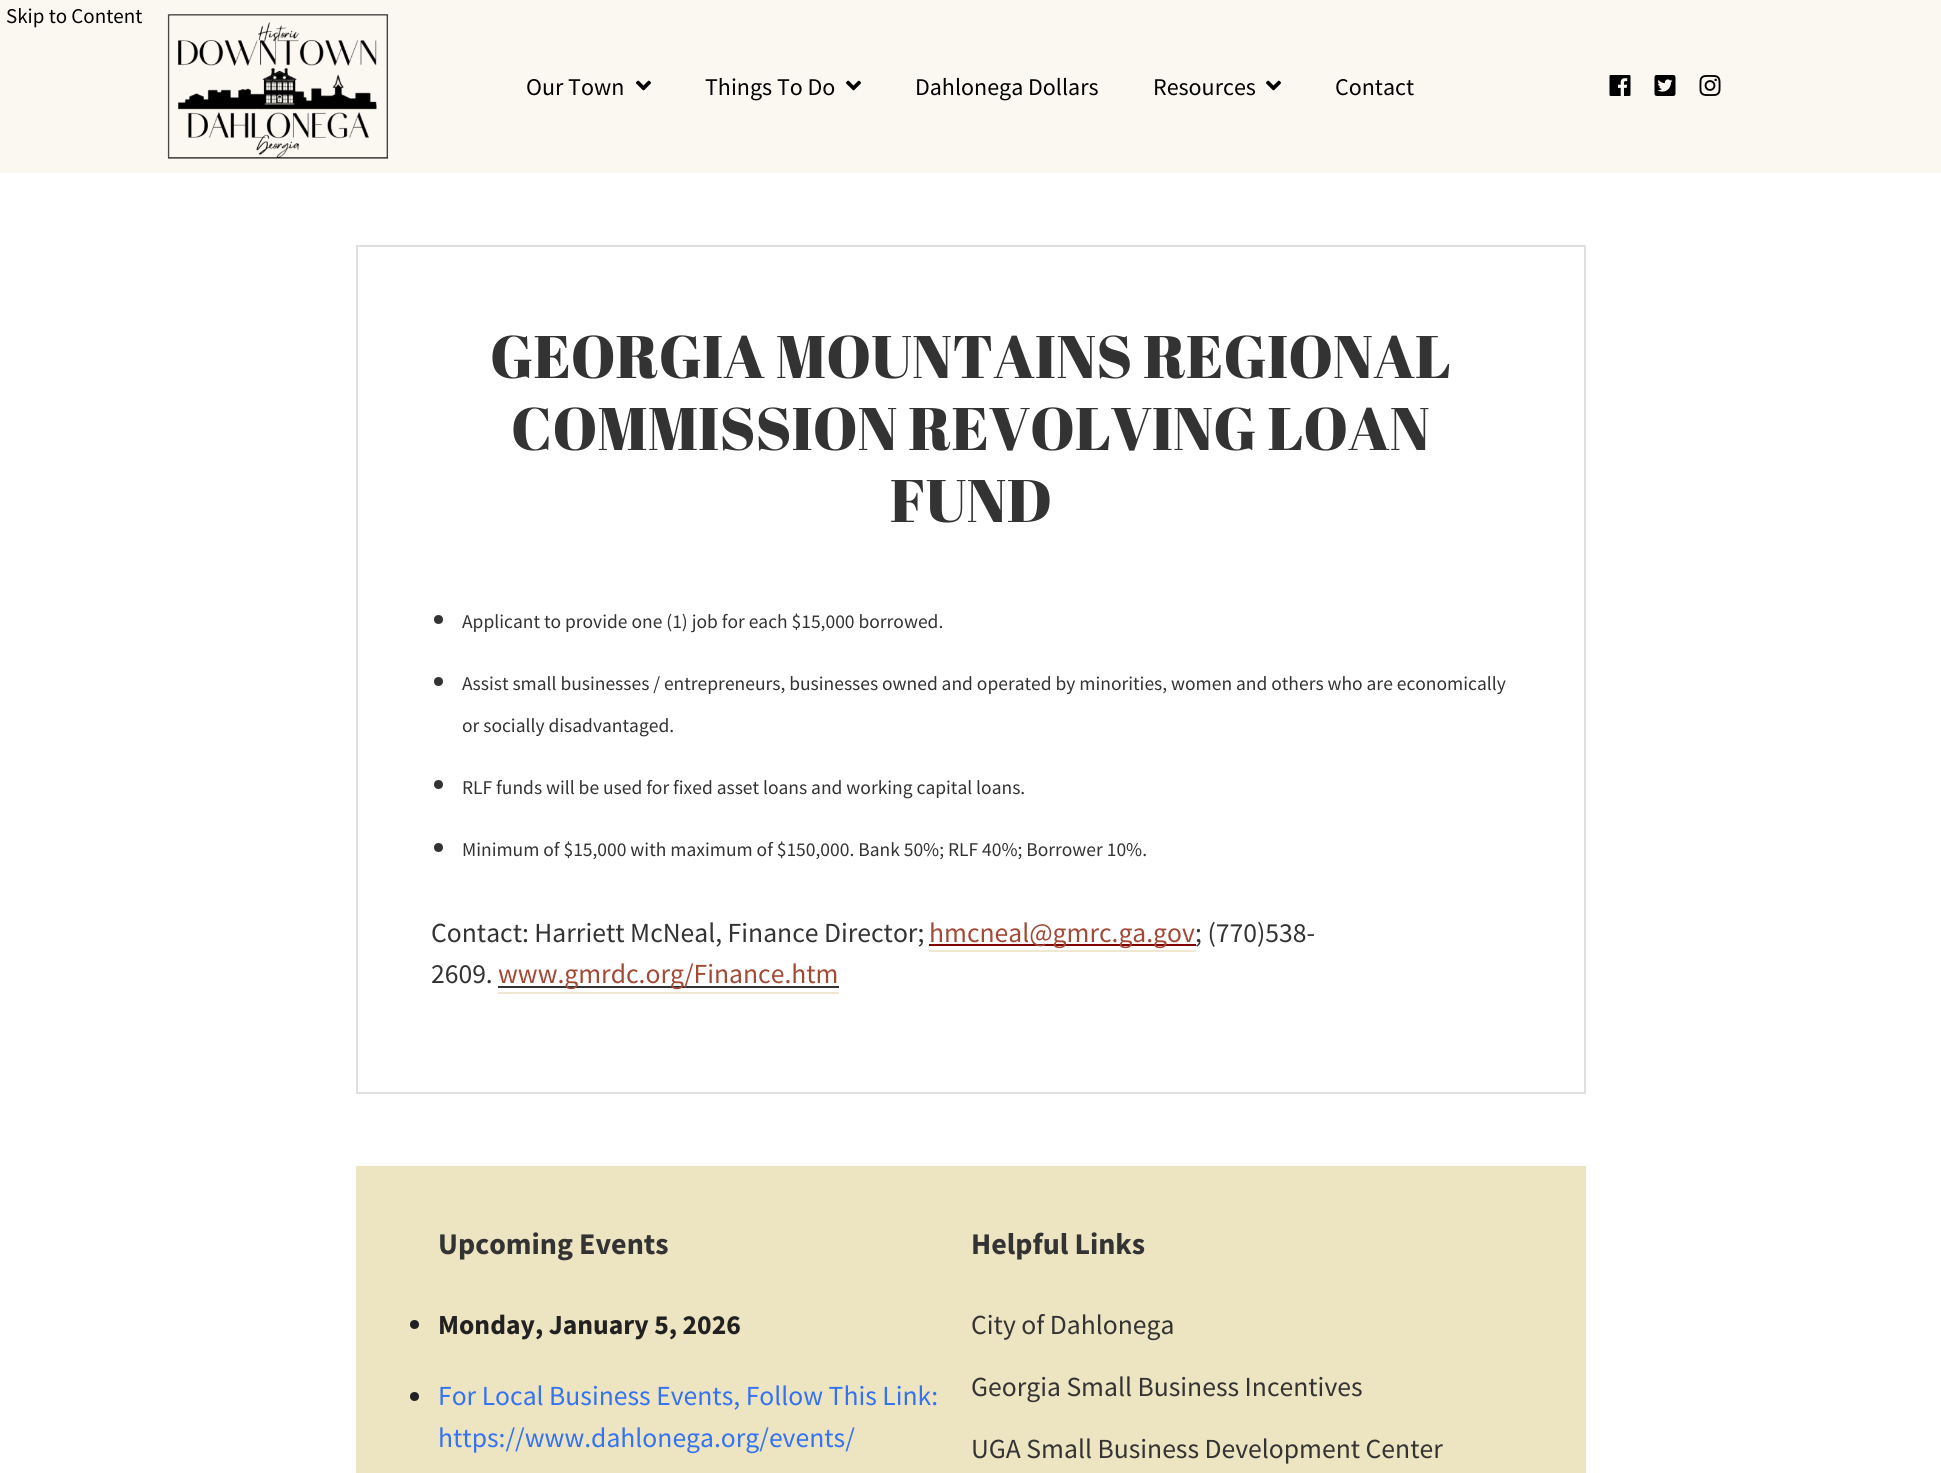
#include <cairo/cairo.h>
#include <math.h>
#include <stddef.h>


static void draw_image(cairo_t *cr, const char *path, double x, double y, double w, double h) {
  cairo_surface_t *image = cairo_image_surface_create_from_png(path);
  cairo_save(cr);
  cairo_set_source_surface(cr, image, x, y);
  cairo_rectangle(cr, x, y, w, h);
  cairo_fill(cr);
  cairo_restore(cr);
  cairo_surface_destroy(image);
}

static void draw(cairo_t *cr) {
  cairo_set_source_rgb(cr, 1, 1, 1);
  cairo_paint(cr);
  cairo_set_source_rgb(cr, 251 / 255.0, 248 / 255.0, 242 / 255.0);
  cairo_rectangle(cr, 0, 0, 1941, 173);
  cairo_fill(cr);
  draw_image(cr, "images/1.png", 167, 14, 222, 145);
  draw_image(cr, "images/2.png", 636, 80, 15, 11);
  draw_image(cr, "images/2.png", 846, 80, 15, 11);
  draw_image(cr, "images/2.png", 1266, 80, 15, 11);
  draw_image(cr, "images/3.png", 1609, 75, 22, 21);
  draw_image(cr, "images/4.png", 1654, 75, 22, 21);
  draw_image(cr, "images/5.png", 1699, 75, 22, 21);
  cairo_rectangle(cr, 357, 246, 1228, 847);
  cairo_set_source_rgb(cr, 223 / 255.0, 223 / 255.0, 223 / 255.0);
  cairo_stroke(cr);
  cairo_set_source_rgb(cr, 51 / 255.0, 51 / 255.0, 51 / 255.0);
  cairo_arc(cr, 438.5, 619.5, 4.5, 0, 2 * M_PI);
  cairo_fill(cr);
  cairo_arc(cr, 438.5, 681.5, 4.5, 0, 2 * M_PI);
  cairo_fill(cr);
  cairo_arc(cr, 438.5, 784.5, 4.5, 0, 2 * M_PI);
  cairo_fill(cr);
  cairo_arc(cr, 438.5, 847.5, 4.5, 0, 2 * M_PI);
  cairo_fill(cr);
  cairo_set_source_rgb(cr, 239 / 255.0, 231 / 255.0, 209 / 255.0);
  cairo_rectangle(cr, 929, 950, 267, 2);
  cairo_fill(cr);
  cairo_set_source_rgb(cr, 128 / 255.0, 0, 0);
  cairo_rectangle(cr, 929, 944, 267, 2);
  cairo_fill(cr);
  cairo_set_source_rgb(cr, 239 / 255.0, 231 / 255.0, 209 / 255.0);
  cairo_rectangle(cr, 498, 992, 341, 2);
  cairo_fill(cr);
  cairo_set_source_rgb(cr, 51 / 255.0, 51 / 255.0, 51 / 255.0);
  cairo_rectangle(cr, 498, 986, 341, 2);
  cairo_fill(cr);
  cairo_set_source_rgb(cr, 237 / 255.0, 228 / 255.0, 194 / 255.0);
  cairo_rectangle(cr, 356, 1166, 1230, 307);
  cairo_fill(cr);
  cairo_set_source_rgb(cr, 33 / 255.0, 33 / 255.0, 33 / 255.0);
  cairo_arc(cr, 414.5, 1324.5, 4.5, 0, 2 * M_PI);
  cairo_fill(cr);
  cairo_arc(cr, 414.5, 1396.5, 4.5, 0, 2 * M_PI);
  cairo_fill(cr);
  cairo_select_font_face(cr, "Source Sans Pro", CAIRO_FONT_SLANT_NORMAL, CAIRO_FONT_WEIGHT_NORMAL);
  cairo_set_font_size(cr, 21);
  cairo_set_source_rgb(cr, 0, 0, 0);
  cairo_move_to(cr, 6, 23);
  cairo_show_text(cr, "Skip to Content");
  cairo_set_font_size(cr, 24);
  cairo_move_to(cr, 526, 95);
  cairo_show_text(cr, "Our Town");
  cairo_move_to(cr, 705, 95);
  cairo_show_text(cr, "Things To Do");
  cairo_move_to(cr, 915, 95);
  cairo_show_text(cr, "Dahlonega Dollars");
  cairo_move_to(cr, 1153, 95);
  cairo_show_text(cr, "Resources");
  cairo_move_to(cr, 1335, 95);
  cairo_show_text(cr, "Contact");
  cairo_select_font_face(cr, "Abril Fatface", CAIRO_FONT_SLANT_NORMAL, CAIRO_FONT_WEIGHT_NORMAL);
  cairo_set_font_size(cr, 60);
  cairo_set_source_rgb(cr, 51 / 255.0, 51 / 255.0, 51 / 255.0);
  cairo_move_to(cr, 490, 378);
  cairo_show_text(cr, "GEORGIA MOUNTAINS REGIONAL");
  cairo_move_to(cr, 511, 450);
  cairo_show_text(cr, "COMMISSION REVOLVING LOAN");
  cairo_move_to(cr, 890, 522);
  cairo_show_text(cr, "FUND");
  cairo_select_font_face(cr, "Source Sans Pro", CAIRO_FONT_SLANT_NORMAL, CAIRO_FONT_WEIGHT_NORMAL);
  cairo_set_font_size(cr, 19.5);
  cairo_move_to(cr, 462, 628);
  cairo_show_text(cr, "Applicant to provide one (1) job for each $15,000 borrowed.");
  cairo_move_to(cr, 462, 690);
  cairo_show_text(cr, "Assist small businesses / entrepreneurs, businesses owned and operated by minorities, women and others who are economically");
  cairo_move_to(cr, 462, 732);
  cairo_show_text(cr, "or socially disadvantaged.");
  cairo_move_to(cr, 462, 794);
  cairo_show_text(cr, "RLF funds will be used for fixed asset loans and working capital loans.");
  cairo_move_to(cr, 462, 856);
  cairo_show_text(cr, "Minimum of $15,000 with maximum of $150,000. Bank 50%; RLF 40%; Borrower 10%.");
  cairo_set_font_size(cr, 27.6);
  cairo_move_to(cr, 431, 942);
  cairo_show_text(cr, "Contact: Harriett McNeal, Finance Director;");
  cairo_set_source_rgb(cr, 162 / 255.0, 74 / 255.0, 54 / 255.0);
  cairo_move_to(cr, 929, 942);
  cairo_show_text(cr, "hmcneal@gmrc.ga.gov");
  cairo_set_source_rgb(cr, 51 / 255.0, 51 / 255.0, 51 / 255.0);
  cairo_move_to(cr, 1195, 942);
  cairo_show_text(cr, "; (770)538-");
  cairo_move_to(cr, 431, 983);
  cairo_show_text(cr, "2609.");
  cairo_set_source_rgb(cr, 162 / 255.0, 74 / 255.0, 54 / 255.0);
  cairo_move_to(cr, 498, 983);
  cairo_show_text(cr, "www.gmrdc.org/Finance.htm");
  cairo_select_font_face(cr, "Source Sans Pro", CAIRO_FONT_SLANT_NORMAL, CAIRO_FONT_WEIGHT_BOLD);
  cairo_set_font_size(cr, 30);
  cairo_set_source_rgb(cr, 51 / 255.0, 51 / 255.0, 51 / 255.0);
  cairo_move_to(cr, 438, 1254);
  cairo_show_text(cr, "Upcoming Events");
  cairo_set_font_size(cr, 27.6);
  cairo_set_source_rgb(cr, 33 / 255.0, 33 / 255.0, 33 / 255.0);
  cairo_move_to(cr, 438, 1334);
  cairo_show_text(cr, "Monday, January 5, 2026");
  cairo_select_font_face(cr, "Source Sans Pro", CAIRO_FONT_SLANT_NORMAL, CAIRO_FONT_WEIGHT_NORMAL);
  cairo_set_source_rgb(cr, 51 / 255.0, 114 / 255.0, 240 / 255.0);
  cairo_move_to(cr, 438, 1405);
  cairo_show_text(cr, "For Local Business Events, Follow This Link:");
  cairo_move_to(cr, 438, 1447);
  cairo_show_text(cr, "https://www.dahlonega.org/events/");
  cairo_select_font_face(cr, "Source Sans Pro", CAIRO_FONT_SLANT_NORMAL, CAIRO_FONT_WEIGHT_BOLD);
  cairo_set_font_size(cr, 30);
  cairo_set_source_rgb(cr, 51 / 255.0, 51 / 255.0, 51 / 255.0);
  cairo_move_to(cr, 971, 1254);
  cairo_show_text(cr, "Helpful Links");
  cairo_select_font_face(cr, "Source Sans Pro", CAIRO_FONT_SLANT_NORMAL, CAIRO_FONT_WEIGHT_NORMAL);
  cairo_set_font_size(cr, 27.6);
  cairo_move_to(cr, 971, 1334);
  cairo_show_text(cr, "City of Dahlonega");
  cairo_move_to(cr, 971, 1396);
  cairo_show_text(cr, "Georgia Small Business Incentives");
  cairo_move_to(cr, 971, 1458);
  cairo_show_text(cr, "UGA Small Business Development Center");
}

int main(void) {
  cairo_surface_t *surface = cairo_image_surface_create(CAIRO_FORMAT_RGB24, 1941, 1473);
  cairo_t *cr = cairo_create(surface);
  cairo_font_options_t *options = cairo_font_options_create();
  cairo_font_options_set_hint_metrics(options, CAIRO_HINT_METRICS_OFF);
  cairo_font_options_set_hint_style(options, CAIRO_HINT_STYLE_NONE);
  cairo_set_font_options(cr, options);
  cairo_set_miter_limit(cr, 4);
  draw(cr);
  cairo_surface_write_to_png(surface, "out.png");
  cairo_font_options_destroy(options);
  cairo_destroy(cr);
  cairo_surface_destroy(surface);
  return 0;
}
